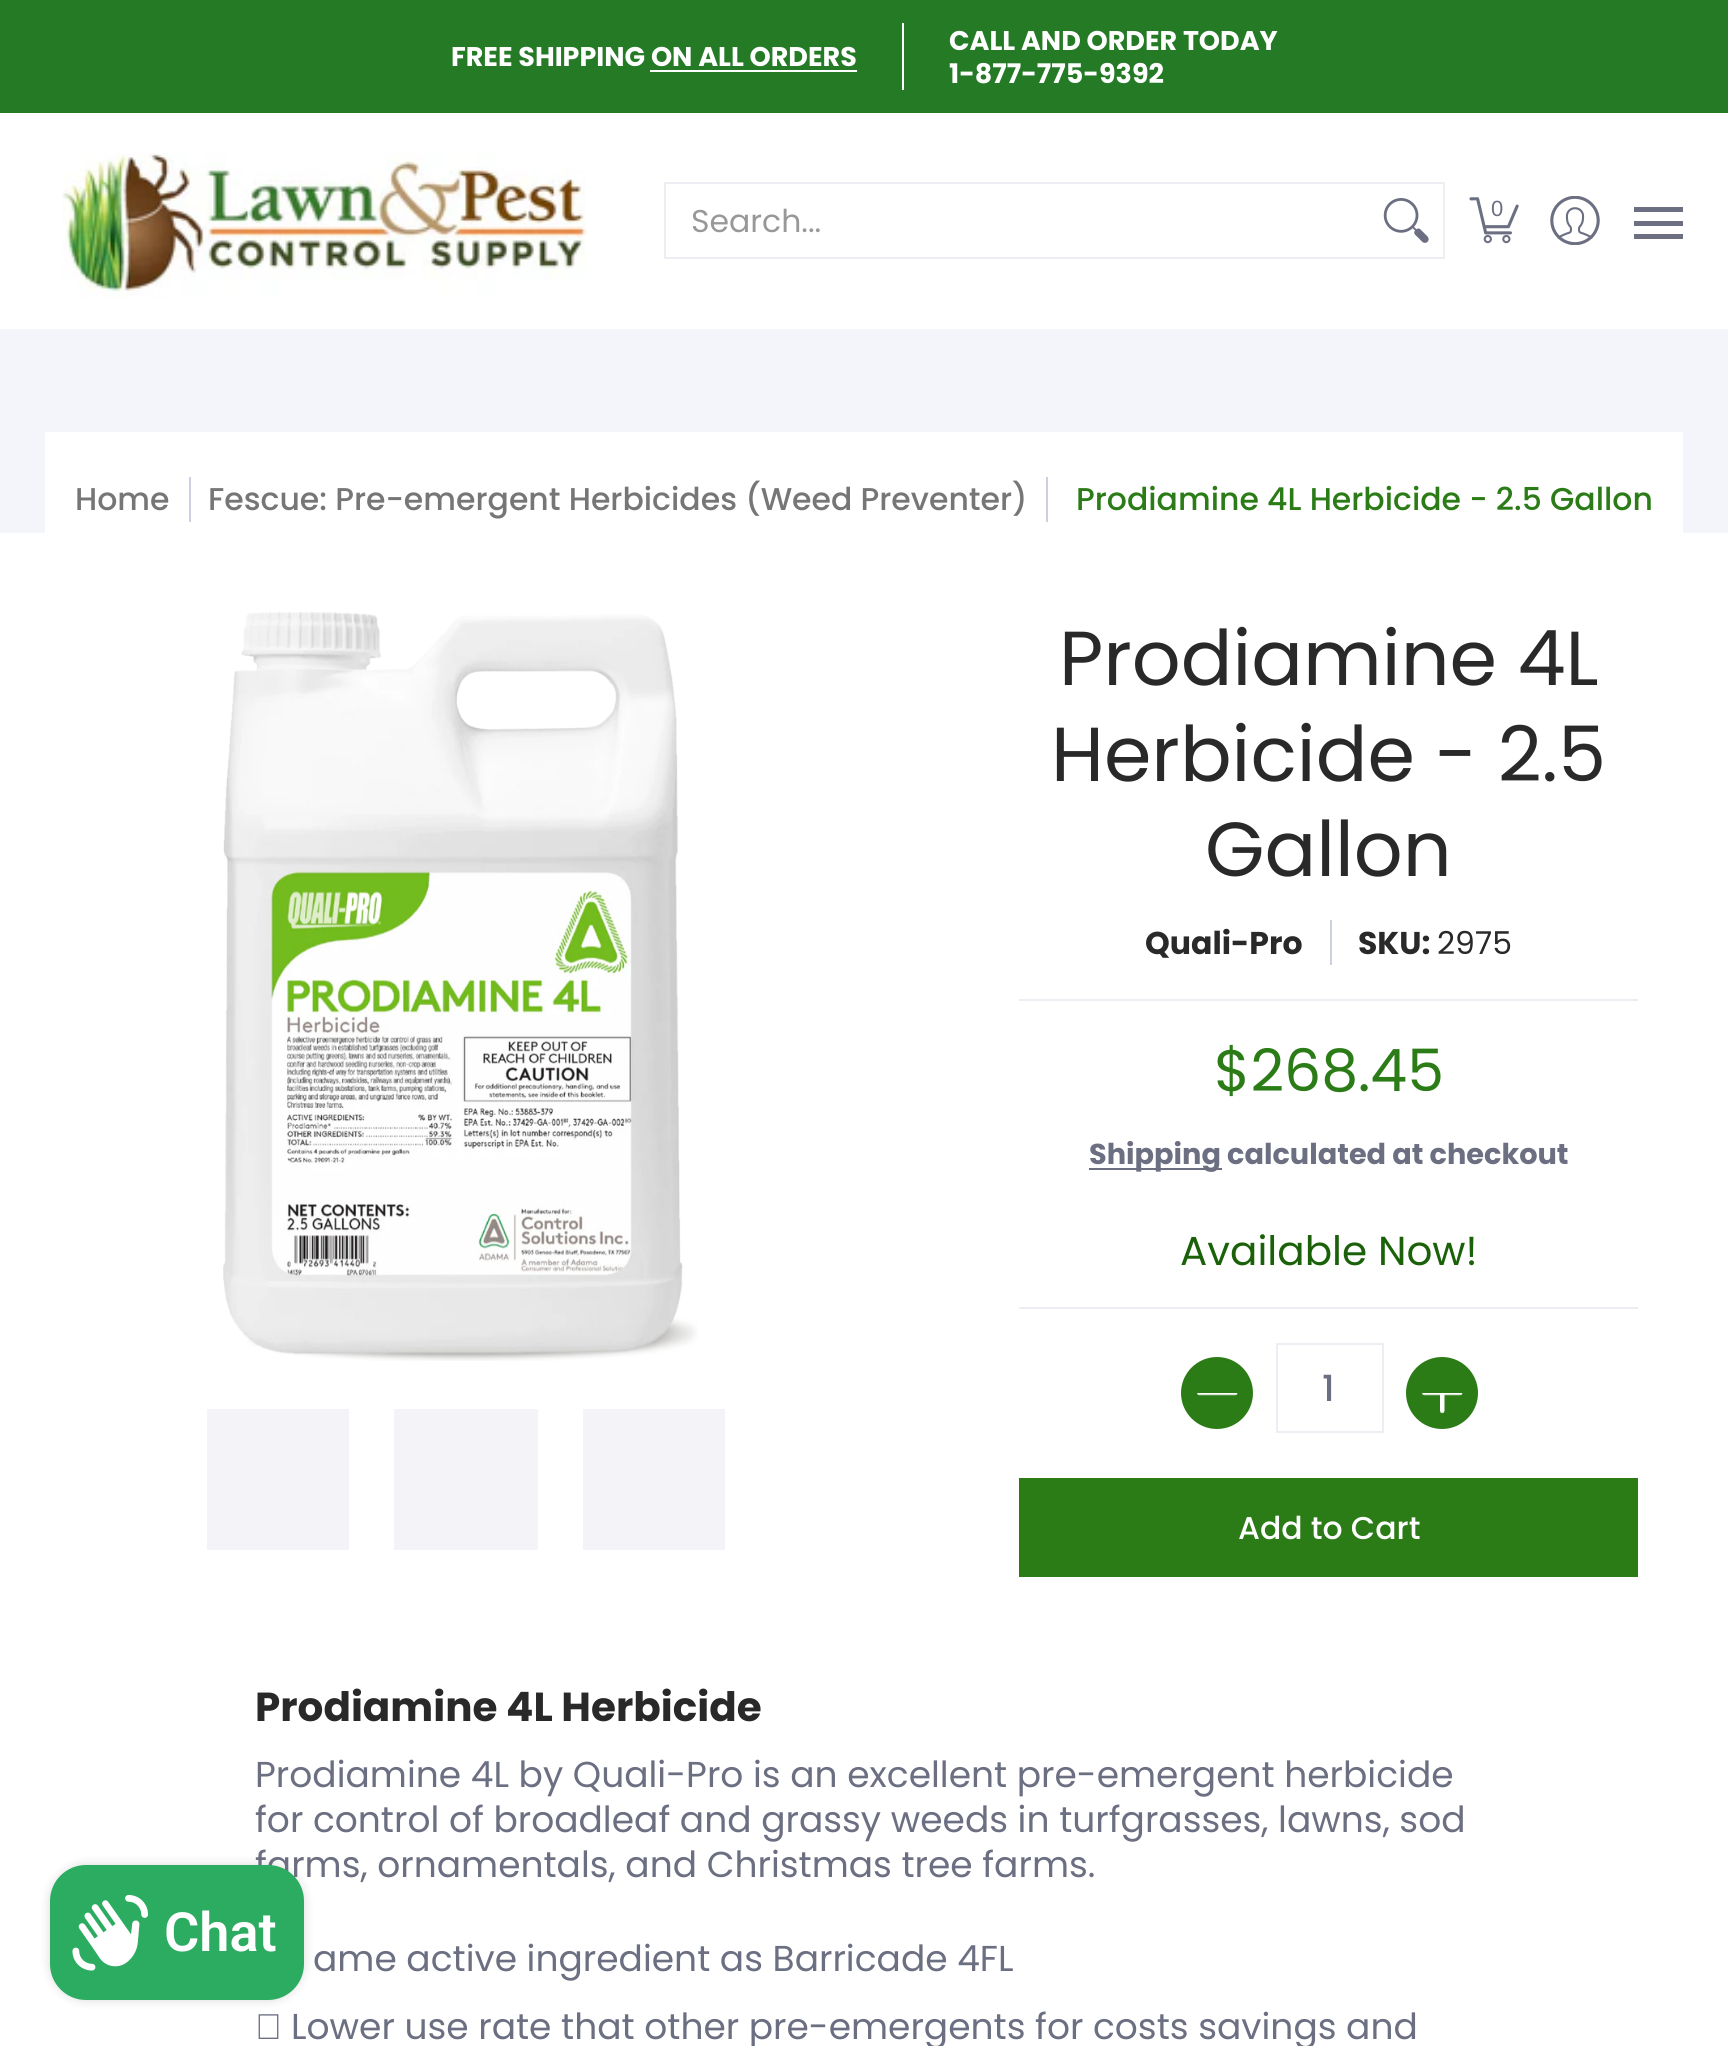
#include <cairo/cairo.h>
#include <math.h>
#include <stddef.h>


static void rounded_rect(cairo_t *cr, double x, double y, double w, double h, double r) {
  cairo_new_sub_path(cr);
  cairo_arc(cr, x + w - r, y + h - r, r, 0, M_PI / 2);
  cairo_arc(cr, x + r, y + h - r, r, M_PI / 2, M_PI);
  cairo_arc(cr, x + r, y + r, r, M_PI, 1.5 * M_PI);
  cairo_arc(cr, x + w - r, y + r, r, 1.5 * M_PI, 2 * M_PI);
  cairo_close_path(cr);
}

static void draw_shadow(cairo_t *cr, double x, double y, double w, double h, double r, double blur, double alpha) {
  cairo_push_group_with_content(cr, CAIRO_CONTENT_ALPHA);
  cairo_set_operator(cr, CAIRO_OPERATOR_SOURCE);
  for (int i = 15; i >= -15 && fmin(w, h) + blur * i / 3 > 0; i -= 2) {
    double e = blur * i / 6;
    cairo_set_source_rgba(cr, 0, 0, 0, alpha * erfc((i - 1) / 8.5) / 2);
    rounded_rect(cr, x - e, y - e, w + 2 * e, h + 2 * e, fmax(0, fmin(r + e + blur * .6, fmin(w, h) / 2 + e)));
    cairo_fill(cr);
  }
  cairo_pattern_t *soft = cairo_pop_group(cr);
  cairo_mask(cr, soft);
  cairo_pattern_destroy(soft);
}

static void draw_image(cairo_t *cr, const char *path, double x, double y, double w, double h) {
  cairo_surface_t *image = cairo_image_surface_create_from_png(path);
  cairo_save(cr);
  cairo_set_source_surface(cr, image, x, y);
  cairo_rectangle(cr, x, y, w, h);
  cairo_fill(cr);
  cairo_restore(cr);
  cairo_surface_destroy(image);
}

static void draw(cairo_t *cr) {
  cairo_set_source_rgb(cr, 1, 1, 1);
  cairo_paint(cr);
  cairo_set_source_rgb(cr, 36 / 255.0, 122 / 255.0, 37 / 255.0);
  cairo_rectangle(cr, 0, 0, 1728, 113);
  cairo_fill(cr);
  cairo_set_source_rgb(cr, 1, 1, 1);
  cairo_rectangle(cr, 650, 70, 207, 2);
  cairo_fill(cr);
  cairo_rectangle(cr, 902, 23, 2, 67);
  cairo_fill(cr);
  draw_image(cr, "images/1.png", 62, 153, 525, 145);
  cairo_rectangle(cr, 665, 183, 779, 75);
  cairo_set_source_rgb(cr, 237 / 255.0, 238 / 255.0, 244 / 255.0);
  cairo_stroke(cr);
  draw_image(cr, "images/2.png", 1383, 198, 46, 45);
  draw_image(cr, "images/3.png", 1469, 197, 50, 47);
  draw_image(cr, "images/4.png", 1550, 196, 50, 49);
  cairo_set_source_rgb(cr, 107 / 255.0, 111 / 255.0, 129 / 255.0);
  cairo_rectangle(cr, 1634, 207, 49, 5);
  cairo_fill(cr);
  cairo_rectangle(cr, 1634, 234, 49, 5);
  cairo_fill(cr);
  cairo_rectangle(cr, 1634, 221, 49, 5);
  cairo_fill(cr);
  cairo_set_source_rgb(cr, 244 / 255.0, 245 / 255.0, 250 / 255.0);
  cairo_rectangle(cr, 0, 329, 1728, 204);
  cairo_fill(cr);
  cairo_set_source_rgb(cr, 1, 1, 1);
  cairo_rectangle(cr, 45, 432, 1638, 101);
  cairo_fill(cr);
  cairo_set_source_rgb(cr, 205 / 255.0, 208 / 255.0, 225 / 255.0);
  cairo_rectangle(cr, 189, 477, 2, 45);
  cairo_fill(cr);
  cairo_rectangle(cr, 1046, 477, 2, 45);
  cairo_fill(cr);
  draw_image(cr, "images/5.png", 223, 612, 475, 749);
  cairo_set_source_rgb(cr, 243 / 255.0, 243 / 255.0, 248 / 255.0);
  cairo_rectangle(cr, 207, 1409, 142, 141);
  cairo_fill(cr);
  cairo_rectangle(cr, 394, 1409, 144, 141);
  cairo_fill(cr);
  cairo_rectangle(cr, 583, 1409, 142, 141);
  cairo_fill(cr);
  cairo_set_source_rgb(cr, 237 / 255.0, 238 / 255.0, 244 / 255.0);
  cairo_rectangle(cr, 1019, 999, 619, 2);
  cairo_fill(cr);
  cairo_set_source_rgb(cr, 205 / 255.0, 208 / 255.0, 225 / 255.0);
  cairo_rectangle(cr, 1330, 920, 2, 45);
  cairo_fill(cr);
  cairo_set_source_rgb(cr, 107 / 255.0, 111 / 255.0, 129 / 255.0);
  cairo_rectangle(cr, 1089, 1168, 133, 2);
  cairo_fill(cr);
  cairo_set_source_rgb(cr, 237 / 255.0, 238 / 255.0, 244 / 255.0);
  cairo_rectangle(cr, 1019, 1307, 619, 2);
  cairo_fill(cr);
  cairo_set_source_rgb(cr, 43 / 255.0, 124 / 255.0, 23 / 255.0);
  cairo_arc(cr, 1217, 1393, 36, 0, 2 * M_PI);
  cairo_fill(cr);
  draw_image(cr, "images/6.png", 1197, 1393, 41, 3);
  cairo_rectangle(cr, 1277, 1344, 106, 88);
  cairo_set_source_rgb(cr, 237 / 255.0, 238 / 255.0, 244 / 255.0);
  cairo_stroke(cr);
  cairo_set_source_rgb(cr, 43 / 255.0, 124 / 255.0, 23 / 255.0);
  cairo_arc(cr, 1442, 1393, 36, 0, 2 * M_PI);
  cairo_fill(cr);
  draw_image(cr, "images/7.png", 1422, 1393, 41, 21);
  cairo_rectangle(cr, 1019, 1478, 619, 99);
  cairo_fill(cr);
  cairo_set_source_rgb(cr, 0, 0, 0);
  draw_shadow(cr, 50, 1865, 254, 135, 36, 5.5, 0.15);
  cairo_select_font_face(cr, "Poppins", CAIRO_FONT_SLANT_NORMAL, CAIRO_FONT_WEIGHT_BOLD);
  cairo_set_font_size(cr, 27);
  cairo_set_source_rgb(cr, 1, 1, 1);
  cairo_move_to(cr, 451, 66);
  cairo_show_text(cr, "FREE SHIPPING ON ALL ORDERS");
  cairo_move_to(cr, 949, 50);
  cairo_show_text(cr, "CALL AND ORDER TODAY");
  cairo_move_to(cr, 949, 83);
  cairo_show_text(cr, "1-877-775-9392");
  cairo_select_font_face(cr, "Poppins", CAIRO_FONT_SLANT_NORMAL, CAIRO_FONT_WEIGHT_NORMAL);
  cairo_set_font_size(cr, 31.5);
  cairo_set_source_rgb(cr, 152 / 255.0, 152 / 255.0, 152 / 255.0);
  cairo_move_to(cr, 691, 232);
  cairo_show_text(cr, "Search...");
  cairo_select_font_face(cr, "Liberation Sans", CAIRO_FONT_SLANT_NORMAL, CAIRO_FONT_WEIGHT_NORMAL);
  cairo_set_font_size(cr, 22);
  cairo_set_source_rgb(cr, 107 / 255.0, 111 / 255.0, 129 / 255.0);
  cairo_move_to(cr, 1491, 216);
  cairo_show_text(cr, "0");
  cairo_select_font_face(cr, "Poppins Medium", CAIRO_FONT_SLANT_NORMAL, CAIRO_FONT_WEIGHT_NORMAL);
  cairo_set_font_size(cr, 31.5);
  cairo_set_source_rgb(cr, 118 / 255.0, 118 / 255.0, 118 / 255.0);
  cairo_move_to(cr, 75, 510);
  cairo_show_text(cr, "Home");
  cairo_move_to(cr, 208, 510);
  cairo_show_text(cr, "Fescue: Pre-emergent Herbicides (Weed Preventer)");
  cairo_set_source_rgb(cr, 43 / 255.0, 124 / 255.0, 23 / 255.0);
  cairo_move_to(cr, 1076, 510);
  cairo_show_text(cr, "Prodiamine 4L Herbicide - 2.5 Gallon");
  cairo_select_font_face(cr, "Poppins", CAIRO_FONT_SLANT_NORMAL, CAIRO_FONT_WEIGHT_NORMAL);
  cairo_set_font_size(cr, 76.5);
  cairo_set_source_rgb(cr, 41 / 255.0, 41 / 255.0, 41 / 255.0);
  cairo_move_to(cr, 1059, 685);
  cairo_show_text(cr, "Prodiamine 4L");
  cairo_move_to(cr, 1051, 781);
  cairo_show_text(cr, "Herbicide - 2.5");
  cairo_move_to(cr, 1205, 876);
  cairo_show_text(cr, "Gallon");
  cairo_select_font_face(cr, "Poppins", CAIRO_FONT_SLANT_NORMAL, CAIRO_FONT_WEIGHT_BOLD);
  cairo_set_font_size(cr, 31.5);
  cairo_move_to(cr, 1145, 954);
  cairo_show_text(cr, "Quali-Pro");
  cairo_move_to(cr, 1358, 954);
  cairo_show_text(cr, "SKU:");
  cairo_select_font_face(cr, "Poppins", CAIRO_FONT_SLANT_NORMAL, CAIRO_FONT_WEIGHT_NORMAL);
  cairo_move_to(cr, 1437, 954);
  cairo_show_text(cr, "2975");
  cairo_set_font_size(cr, 58.5);
  cairo_set_source_rgb(cr, 43 / 255.0, 124 / 255.0, 23 / 255.0);
  cairo_move_to(cr, 1214, 1091);
  cairo_show_text(cr, "$268.45");
  cairo_select_font_face(cr, "Poppins", CAIRO_FONT_SLANT_NORMAL, CAIRO_FONT_WEIGHT_BOLD);
  cairo_set_font_size(cr, 28.75);
  cairo_set_source_rgb(cr, 107 / 255.0, 111 / 255.0, 129 / 255.0);
  cairo_move_to(cr, 1089, 1164);
  cairo_show_text(cr, "Shipping calculated at checkout");
  cairo_select_font_face(cr, "Poppins", CAIRO_FONT_SLANT_NORMAL, CAIRO_FONT_WEIGHT_NORMAL);
  cairo_set_font_size(cr, 40.5);
  cairo_set_source_rgb(cr, 27 / 255.0, 97 / 255.0, 9 / 255.0);
  cairo_move_to(cr, 1180, 1265);
  cairo_show_text(cr, "Available Now!");
  cairo_select_font_face(cr, "Poppins Medium", CAIRO_FONT_SLANT_NORMAL, CAIRO_FONT_WEIGHT_NORMAL);
  cairo_set_font_size(cr, 36);
  cairo_set_source_rgb(cr, 107 / 255.0, 111 / 255.0, 129 / 255.0);
  cairo_move_to(cr, 1322, 1401);
  cairo_show_text(cr, "1");
  cairo_set_font_size(cr, 31.5);
  cairo_set_source_rgb(cr, 1, 1, 1);
  cairo_move_to(cr, 1238, 1539);
  cairo_show_text(cr, "Add to Cart");
  cairo_select_font_face(cr, "Poppins", CAIRO_FONT_SLANT_NORMAL, CAIRO_FONT_WEIGHT_BOLD);
  cairo_set_font_size(cr, 40.5);
  cairo_set_source_rgb(cr, 41 / 255.0, 41 / 255.0, 41 / 255.0);
  cairo_move_to(cr, 255, 1721);
  cairo_show_text(cr, "Prodiamine 4L Herbicide");
  cairo_select_font_face(cr, "Poppins", CAIRO_FONT_SLANT_NORMAL, CAIRO_FONT_WEIGHT_NORMAL);
  cairo_set_font_size(cr, 36);
  cairo_set_source_rgb(cr, 107 / 255.0, 111 / 255.0, 129 / 255.0);
  cairo_move_to(cr, 255, 1787);
  cairo_show_text(cr, "Prodiamine 4L by Quali-Pro is an excellent pre-emergent herbicide");
  cairo_move_to(cr, 255, 1832);
  cairo_show_text(cr, "for control of broadleaf and grassy weeds in turfgrasses, lawns, sod");
  cairo_move_to(cr, 255, 1877);
  cairo_show_text(cr, "farms, ornamentals, and Christmas tree farms.");
  cairo_move_to(cr, 313, 1971);
  cairo_show_text(cr, "ame active ingredient as Barricade 4FL");
  cairo_select_font_face(cr, "Liberation Sans", CAIRO_FONT_SLANT_NORMAL, CAIRO_FONT_WEIGHT_NORMAL);
  cairo_move_to(cr, 255, 2039);
  cairo_show_text(cr, "‑");
  cairo_select_font_face(cr, "Poppins", CAIRO_FONT_SLANT_NORMAL, CAIRO_FONT_WEIGHT_NORMAL);
  cairo_move_to(cr, 291, 2039);
  cairo_show_text(cr, "Lower use rate that other pre-emergents for costs savings and");
  cairo_set_source_rgb(cr, 44 / 255.0, 172 / 255.0, 97 / 255.0);
  rounded_rect(cr, 50, 1865, 254, 135, 36);
  cairo_fill(cr);
  draw_image(cr, "images/8.png", 72, 1894, 77, 77);
  cairo_select_font_face(cr, "Roboto SemiBold", CAIRO_FONT_SLANT_NORMAL, CAIRO_FONT_WEIGHT_NORMAL);
  cairo_set_font_size(cr, 54);
  cairo_set_source_rgb(cr, 1, 1, 1);
  cairo_move_to(cr, 164, 1951);
  cairo_show_text(cr, "Chat");
}

int main(void) {
  cairo_surface_t *surface = cairo_image_surface_create(CAIRO_FORMAT_RGB24, 1728, 2046);
  cairo_t *cr = cairo_create(surface);
  cairo_font_options_t *options = cairo_font_options_create();
  cairo_font_options_set_hint_metrics(options, CAIRO_HINT_METRICS_OFF);
  cairo_font_options_set_hint_style(options, CAIRO_HINT_STYLE_NONE);
  cairo_set_font_options(cr, options);
  cairo_set_miter_limit(cr, 4);
  draw(cr);
  cairo_surface_write_to_png(surface, "out.png");
  cairo_font_options_destroy(options);
  cairo_destroy(cr);
  cairo_surface_destroy(surface);
  return 0;
}
